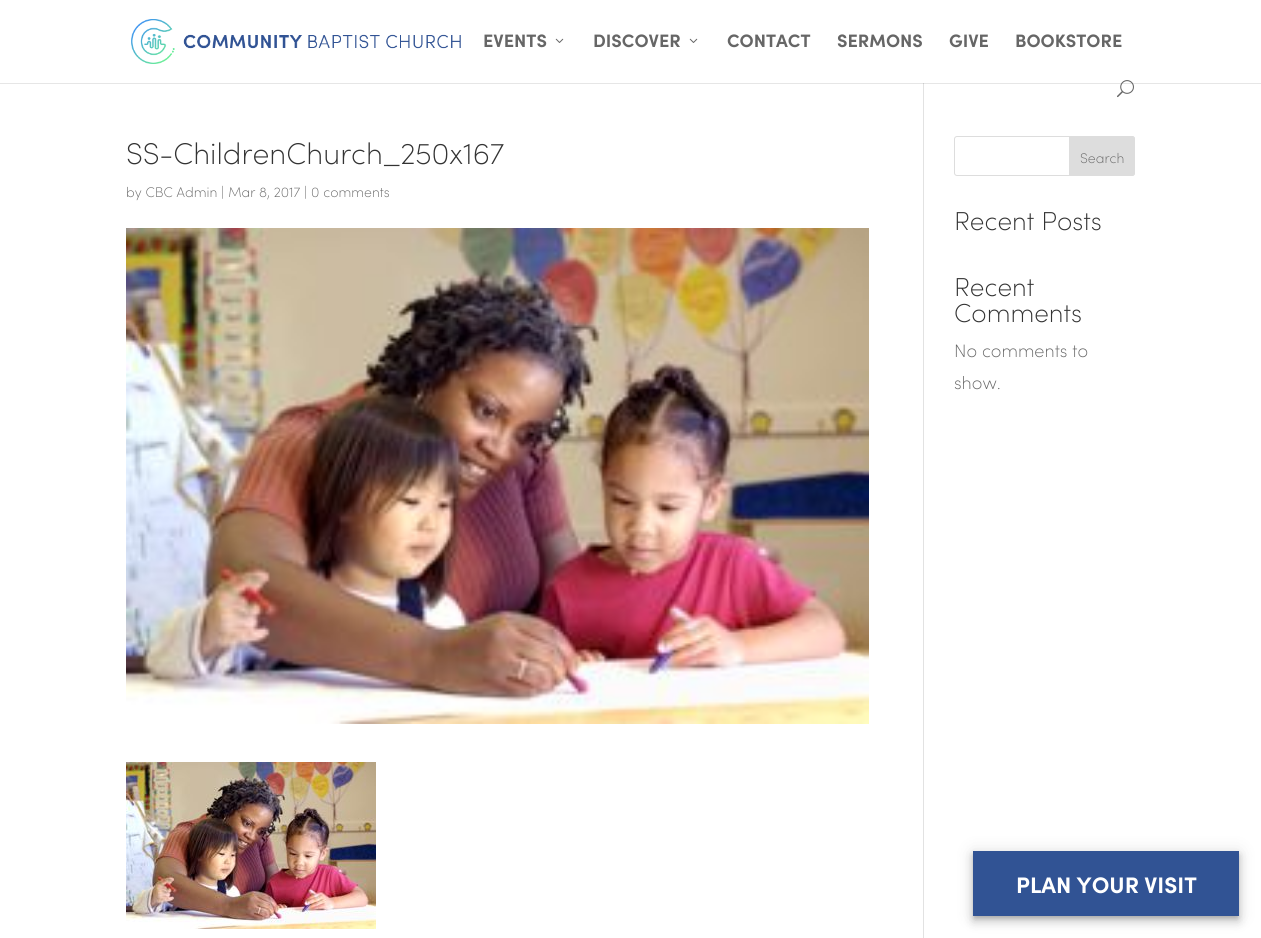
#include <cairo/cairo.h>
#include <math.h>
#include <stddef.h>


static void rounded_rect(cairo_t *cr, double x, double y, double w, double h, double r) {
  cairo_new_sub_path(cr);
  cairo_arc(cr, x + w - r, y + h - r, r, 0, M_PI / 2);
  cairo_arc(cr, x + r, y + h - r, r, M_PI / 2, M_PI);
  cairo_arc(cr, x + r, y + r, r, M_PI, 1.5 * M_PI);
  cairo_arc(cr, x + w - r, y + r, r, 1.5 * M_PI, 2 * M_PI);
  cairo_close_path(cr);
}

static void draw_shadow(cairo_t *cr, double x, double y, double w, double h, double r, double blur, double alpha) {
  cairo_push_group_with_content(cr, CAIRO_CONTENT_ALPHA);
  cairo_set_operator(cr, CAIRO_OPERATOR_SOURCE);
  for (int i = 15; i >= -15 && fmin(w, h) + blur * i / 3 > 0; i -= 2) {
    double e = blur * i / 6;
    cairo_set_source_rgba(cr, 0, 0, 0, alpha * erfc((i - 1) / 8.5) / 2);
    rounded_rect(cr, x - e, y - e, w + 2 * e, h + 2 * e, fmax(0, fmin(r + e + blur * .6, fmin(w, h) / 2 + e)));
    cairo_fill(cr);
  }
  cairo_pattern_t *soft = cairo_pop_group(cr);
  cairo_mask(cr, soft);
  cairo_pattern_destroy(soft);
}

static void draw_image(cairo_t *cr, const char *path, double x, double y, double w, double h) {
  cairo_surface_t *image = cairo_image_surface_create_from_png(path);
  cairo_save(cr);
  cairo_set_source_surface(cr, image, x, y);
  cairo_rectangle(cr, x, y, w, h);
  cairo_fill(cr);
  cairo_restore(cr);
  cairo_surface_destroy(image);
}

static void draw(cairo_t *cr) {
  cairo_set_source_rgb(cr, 1, 1, 1);
  cairo_paint(cr);
  cairo_set_source_rgb(cr, 230 / 255.0, 230 / 255.0, 230 / 255.0);
  cairo_rectangle(cr, 0, 83, 1261, 1);
  cairo_fill(cr);
  cairo_set_source_rgb(cr, 226 / 255.0, 226 / 255.0, 226 / 255.0);
  cairo_rectangle(cr, 923, 78, 1, 860);
  cairo_fill(cr);
  cairo_set_source_rgb(cr, 1, 1, 1);
  cairo_rectangle(cr, 923, 78, 1, 5);
  cairo_fill(cr);
  draw_image(cr, "images/1.png", 131, 19, 330, 45);
  draw_image(cr, "images/2.png", 555, 38, 9, 5);
  draw_image(cr, "images/2.png", 689, 38, 9, 5);
  draw_image(cr, "images/3.png", 1117, 80, 17, 18);
  cairo_set_source_rgb(cr, 203 / 255.0, 203 / 255.0, 203 / 255.0);
  cairo_rectangle(cr, 923, 83, 1, 1);
  cairo_fill(cr);
  draw_image(cr, "images/4.png", 126, 228, 743, 496);
  draw_image(cr, "images/5.png", 126, 762, 250, 167);
  rounded_rect(cr, 954.5, 136.5, 180, 39, 2.5);
  cairo_set_source_rgb(cr, 221 / 255.0, 221 / 255.0, 221 / 255.0);
  cairo_set_line_width(cr, 1);
  cairo_stroke(cr);
  cairo_new_path(cr);
  cairo_move_to(cr, 1069.5, 136.5);
  cairo_line_to(cr, 1132, 136.5);
  cairo_curve_to(cr, 1133.5, 136.5, 1134.5, 137.5, 1134.5, 139);
  cairo_line_to(cr, 1134.5, 173);
  cairo_curve_to(cr, 1134.5, 174.5, 1133.5, 175.5, 1132, 175.5);
  cairo_line_to(cr, 1069.5, 175.5);
  cairo_close_path(cr);
  cairo_fill_preserve(cr);
  cairo_stroke(cr);
  cairo_set_source_rgb(cr, 0, 0, 0);
  draw_shadow(cr, 973, 852, 266, 65, 0, 9, 0.12);
  draw_shadow(cr, 973, 857, 266, 65, 0, 5, 0.14);
  draw_shadow(cr, 974, 855, 264, 63, 0, 2.5, 0.2);
  cairo_set_source_rgb(cr, 49 / 255.0, 83 / 255.0, 148 / 255.0);
  cairo_rectangle(cr, 973, 851, 266, 65);
  cairo_fill(cr);
  cairo_select_font_face(cr, "Sofia", CAIRO_FONT_SLANT_NORMAL, CAIRO_FONT_WEIGHT_BOLD);
  cairo_set_font_size(cr, 18);
  cairo_set_source_rgb(cr, 102 / 255.0, 102 / 255.0, 102 / 255.0);
  cairo_move_to(cr, 483, 47);
  cairo_show_text(cr, "EVENTS");
  cairo_move_to(cr, 593, 47);
  cairo_show_text(cr, "DISCOVER");
  cairo_move_to(cr, 727, 47);
  cairo_show_text(cr, "CONTACT");
  cairo_move_to(cr, 837, 47);
  cairo_show_text(cr, "SERMONS");
  cairo_move_to(cr, 949, 47);
  cairo_show_text(cr, "GIVE");
  cairo_move_to(cr, 1015, 47);
  cairo_show_text(cr, "BOOKSTORE");
  cairo_select_font_face(cr, "Sofia ExtraLight", CAIRO_FONT_SLANT_NORMAL, CAIRO_FONT_WEIGHT_NORMAL);
  cairo_set_font_size(cr, 30);
  cairo_set_source_rgb(cr, 51 / 255.0, 51 / 255.0, 51 / 255.0);
  cairo_move_to(cr, 126, 164);
  cairo_show_text(cr, "SS-ChildrenChurch_250x167");
  cairo_set_font_size(cr, 14);
  cairo_set_source_rgb(cr, 102 / 255.0, 102 / 255.0, 102 / 255.0);
  cairo_move_to(cr, 126, 197);
  cairo_show_text(cr, "by CBC Admin | Mar 8, 2017 | 0 comments");
  cairo_move_to(cr, 1080, 163);
  cairo_show_text(cr, "Search");
  cairo_set_font_size(cr, 26);
  cairo_set_source_rgb(cr, 51 / 255.0, 51 / 255.0, 51 / 255.0);
  cairo_move_to(cr, 954, 230);
  cairo_show_text(cr, "Recent Posts");
  cairo_move_to(cr, 954, 296);
  cairo_show_text(cr, "Recent");
  cairo_move_to(cr, 954, 322);
  cairo_show_text(cr, "Comments");
  cairo_set_font_size(cr, 18);
  cairo_set_source_rgb(cr, 102 / 255.0, 102 / 255.0, 102 / 255.0);
  cairo_move_to(cr, 954, 357);
  cairo_show_text(cr, "No comments to");
  cairo_move_to(cr, 954, 389);
  cairo_show_text(cr, "show.");
  cairo_select_font_face(cr, "Sofia", CAIRO_FONT_SLANT_NORMAL, CAIRO_FONT_WEIGHT_BOLD);
  cairo_set_font_size(cr, 22.5);
  cairo_set_source_rgb(cr, 1, 1, 1);
  cairo_move_to(cr, 1016, 893);
  cairo_show_text(cr, "PLAN YOUR VISIT");
}

int main(void) {
  cairo_surface_t *surface = cairo_image_surface_create(CAIRO_FORMAT_RGB24, 1261, 938);
  cairo_t *cr = cairo_create(surface);
  cairo_font_options_t *options = cairo_font_options_create();
  cairo_font_options_set_hint_metrics(options, CAIRO_HINT_METRICS_OFF);
  cairo_font_options_set_hint_style(options, CAIRO_HINT_STYLE_NONE);
  cairo_set_font_options(cr, options);
  cairo_set_miter_limit(cr, 4);
  draw(cr);
  cairo_surface_write_to_png(surface, "out.png");
  cairo_font_options_destroy(options);
  cairo_destroy(cr);
  cairo_surface_destroy(surface);
  return 0;
}
